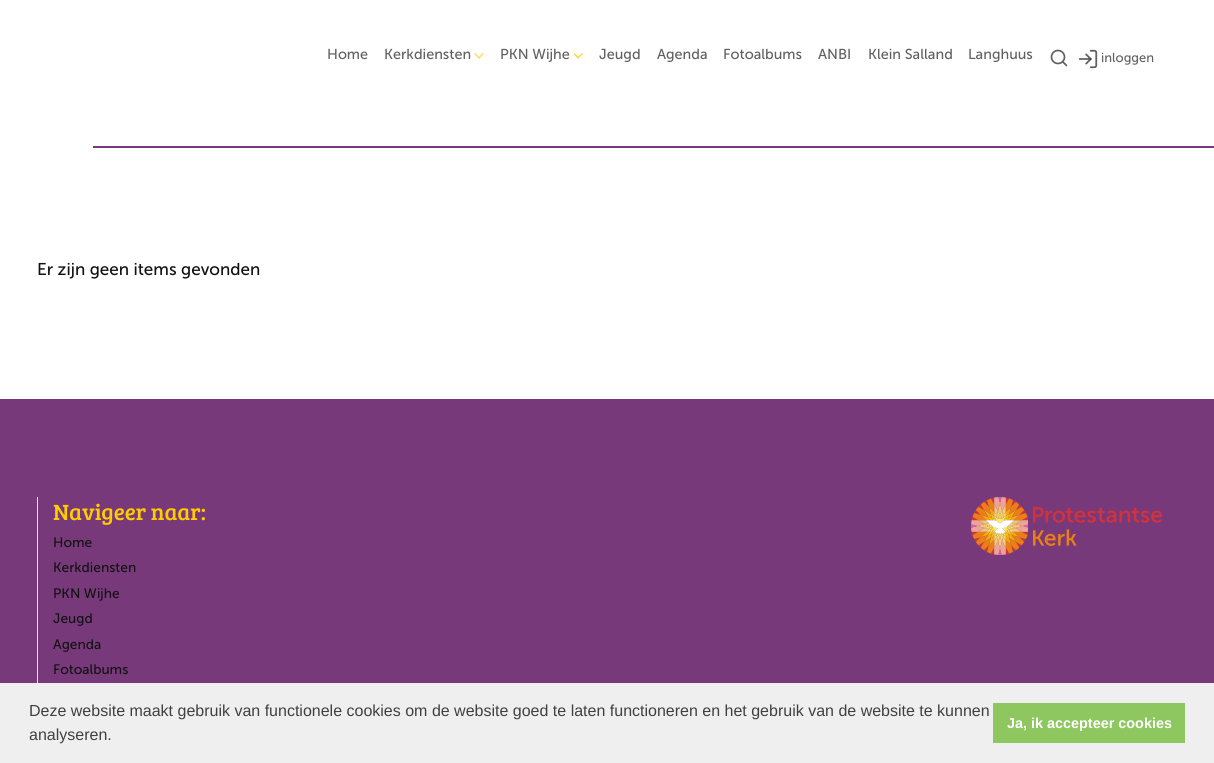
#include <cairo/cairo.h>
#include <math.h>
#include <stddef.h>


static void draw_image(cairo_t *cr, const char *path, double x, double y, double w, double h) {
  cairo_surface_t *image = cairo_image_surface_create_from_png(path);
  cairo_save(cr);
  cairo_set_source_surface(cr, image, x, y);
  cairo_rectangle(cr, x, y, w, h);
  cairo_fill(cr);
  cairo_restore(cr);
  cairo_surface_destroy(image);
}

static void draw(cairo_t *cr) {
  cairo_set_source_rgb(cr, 1, 1, 1);
  cairo_paint(cr);
  cairo_set_source_rgb(cr, 1, 212 / 255.0, 38 / 255.0);
  cairo_new_path(cr);
  cairo_move_to(cr, 483.5, 54);
  cairo_line_to(cr, 479, 58.5);
  cairo_line_to(cr, 478.5, 57.5);
  cairo_line_to(cr, 483, 53);
  cairo_close_path(cr);
  cairo_fill(cr);
  cairo_new_path(cr);
  cairo_move_to(cr, 479.5, 57.5);
  cairo_line_to(cr, 479, 58.5);
  cairo_line_to(cr, 474.5, 54);
  cairo_line_to(cr, 475, 53);
  cairo_close_path(cr);
  cairo_fill(cr);
  cairo_new_path(cr);
  cairo_move_to(cr, 583, 54);
  cairo_line_to(cr, 578, 58.5);
  cairo_line_to(cr, 577.5, 57.5);
  cairo_line_to(cr, 582, 53);
  cairo_close_path(cr);
  cairo_fill(cr);
  cairo_new_path(cr);
  cairo_move_to(cr, 579, 57.5);
  cairo_line_to(cr, 578, 58.5);
  cairo_line_to(cr, 573.5, 54);
  cairo_line_to(cr, 574.5, 53);
  cairo_close_path(cr);
  cairo_fill(cr);
  cairo_arc(cr, 1058, 57, 6.5, 0, 2 * M_PI);
  cairo_set_source_rgb(cr, 96 / 255.0, 96 / 255.0, 96 / 255.0);
  cairo_set_line_width(cr, 1.7);
  cairo_stroke(cr);
  cairo_new_path(cr);
  cairo_move_to(cr, 1066.5, 65.5);
  cairo_line_to(cr, 1063, 62);
  cairo_set_line_cap(cr, CAIRO_LINE_CAP_ROUND);
  cairo_set_line_join(cr, CAIRO_LINE_JOIN_ROUND);
  cairo_stroke(cr);
  draw_image(cr, "images/1.png", 1078, 49, 20, 20);
  cairo_set_source_rgb(cr, 120 / 255.0, 57 / 255.0, 123 / 255.0);
  cairo_rectangle(cr, 93, 146, 1121, 2);
  cairo_fill(cr);
  cairo_rectangle(cr, 0, 399, 1214, 284);
  cairo_fill(cr);
  cairo_set_source_rgb(cr, 230 / 255.0, 229 / 255.0, 229 / 255.0);
  cairo_rectangle(cr, 37, 497, 1, 186);
  cairo_fill(cr);
  draw_image(cr, "images/2.png", 971, 497, 57, 58);
  draw_image(cr, "images/3.png", 1033, 507, 129, 39);
  cairo_set_source_rgb(cr, 239 / 255.0, 239 / 255.0, 239 / 255.0);
  cairo_rectangle(cr, 0, 683, 1214, 80);
  cairo_fill(cr);
  cairo_set_source_rgb(cr, 142 / 255.0, 199 / 255.0, 96 / 255.0);
  cairo_rectangle(cr, 993, 703, 192, 40);
  cairo_fill(cr);
  cairo_select_font_face(cr, "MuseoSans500", CAIRO_FONT_SLANT_NORMAL, CAIRO_FONT_WEIGHT_NORMAL);
  cairo_set_font_size(cr, 14.4);
  cairo_set_source_rgb(cr, 96 / 255.0, 96 / 255.0, 96 / 255.0);
  cairo_move_to(cr, 327, 59);
  cairo_show_text(cr, "Home");
  cairo_move_to(cr, 384, 59);
  cairo_show_text(cr, "Kerkdiensten");
  cairo_move_to(cr, 500, 59);
  cairo_show_text(cr, "PKN Wijhe");
  cairo_move_to(cr, 599, 59);
  cairo_show_text(cr, "Jeugd");
  cairo_move_to(cr, 657, 59);
  cairo_show_text(cr, "Agenda");
  cairo_move_to(cr, 723, 59);
  cairo_show_text(cr, "Fotoalbums");
  cairo_move_to(cr, 818, 59);
  cairo_show_text(cr, "ANBI");
  cairo_move_to(cr, 868, 59);
  cairo_show_text(cr, "Klein Salland");
  cairo_move_to(cr, 968, 59);
  cairo_show_text(cr, "Langhuus");
  cairo_set_font_size(cr, 13);
  cairo_move_to(cr, 1101, 62);
  cairo_show_text(cr, "inloggen");
  cairo_set_font_size(cr, 17.1);
  cairo_set_source_rgb(cr, 17 / 255.0, 17 / 255.0, 17 / 255.0);
  cairo_move_to(cr, 37, 275);
  cairo_show_text(cr, "Er zijn geen items gevonden");
  cairo_select_font_face(cr, "Bree Serif", CAIRO_FONT_SLANT_NORMAL, CAIRO_FONT_WEIGHT_NORMAL);
  cairo_set_font_size(cr, 22.75);
  cairo_set_source_rgb(cr, 1, 204 / 255.0, 0);
  cairo_move_to(cr, 53, 520);
  cairo_show_text(cr, "Navigeer naar:");
  cairo_select_font_face(cr, "MuseoSans500", CAIRO_FONT_SLANT_NORMAL, CAIRO_FONT_WEIGHT_NORMAL);
  cairo_set_font_size(cr, 13.75);
  cairo_set_source_rgb(cr, 17 / 255.0, 17 / 255.0, 17 / 255.0);
  cairo_move_to(cr, 53, 547);
  cairo_show_text(cr, "Home");
  cairo_move_to(cr, 53, 572);
  cairo_show_text(cr, "Kerkdiensten");
  cairo_move_to(cr, 53, 598);
  cairo_show_text(cr, "PKN Wijhe");
  cairo_move_to(cr, 53, 623);
  cairo_show_text(cr, "Jeugd");
  cairo_move_to(cr, 53, 649);
  cairo_show_text(cr, "Agenda");
  cairo_move_to(cr, 53, 674);
  cairo_show_text(cr, "Fotoalbums");
  cairo_select_font_face(cr, "Liberation Sans", CAIRO_FONT_SLANT_NORMAL, CAIRO_FONT_WEIGHT_NORMAL);
  cairo_set_font_size(cr, 16);
  cairo_set_source_rgb(cr, 64 / 255.0, 64 / 255.0, 64 / 255.0);
  cairo_move_to(cr, 29, 716);
  cairo_show_text(cr, "Deze website maakt gebruik van functionele cookies om de website goed te laten functioneren en het gebruik van de website te kunnen");
  cairo_move_to(cr, 29, 740);
  cairo_show_text(cr, "analyseren.");
  cairo_select_font_face(cr, "Liberation Sans", CAIRO_FONT_SLANT_NORMAL, CAIRO_FONT_WEIGHT_BOLD);
  cairo_set_font_size(cr, 14.4);
  cairo_set_source_rgb(cr, 1, 1, 1);
  cairo_move_to(cr, 1007, 728);
  cairo_show_text(cr, "Ja, ik accepteer cookies");
}

int main(void) {
  cairo_surface_t *surface = cairo_image_surface_create(CAIRO_FORMAT_RGB24, 1214, 763);
  cairo_t *cr = cairo_create(surface);
  cairo_font_options_t *options = cairo_font_options_create();
  cairo_font_options_set_hint_metrics(options, CAIRO_HINT_METRICS_OFF);
  cairo_font_options_set_hint_style(options, CAIRO_HINT_STYLE_NONE);
  cairo_set_font_options(cr, options);
  cairo_set_miter_limit(cr, 4);
  draw(cr);
  cairo_surface_write_to_png(surface, "out.png");
  cairo_font_options_destroy(options);
  cairo_destroy(cr);
  cairo_surface_destroy(surface);
  return 0;
}
